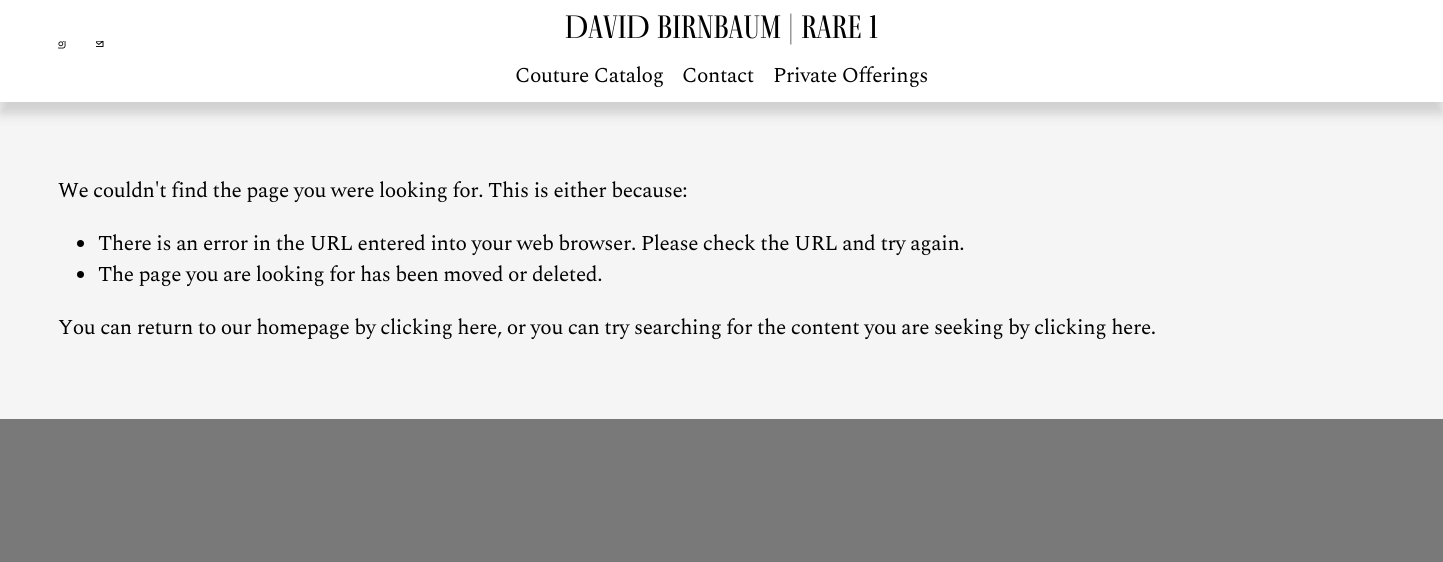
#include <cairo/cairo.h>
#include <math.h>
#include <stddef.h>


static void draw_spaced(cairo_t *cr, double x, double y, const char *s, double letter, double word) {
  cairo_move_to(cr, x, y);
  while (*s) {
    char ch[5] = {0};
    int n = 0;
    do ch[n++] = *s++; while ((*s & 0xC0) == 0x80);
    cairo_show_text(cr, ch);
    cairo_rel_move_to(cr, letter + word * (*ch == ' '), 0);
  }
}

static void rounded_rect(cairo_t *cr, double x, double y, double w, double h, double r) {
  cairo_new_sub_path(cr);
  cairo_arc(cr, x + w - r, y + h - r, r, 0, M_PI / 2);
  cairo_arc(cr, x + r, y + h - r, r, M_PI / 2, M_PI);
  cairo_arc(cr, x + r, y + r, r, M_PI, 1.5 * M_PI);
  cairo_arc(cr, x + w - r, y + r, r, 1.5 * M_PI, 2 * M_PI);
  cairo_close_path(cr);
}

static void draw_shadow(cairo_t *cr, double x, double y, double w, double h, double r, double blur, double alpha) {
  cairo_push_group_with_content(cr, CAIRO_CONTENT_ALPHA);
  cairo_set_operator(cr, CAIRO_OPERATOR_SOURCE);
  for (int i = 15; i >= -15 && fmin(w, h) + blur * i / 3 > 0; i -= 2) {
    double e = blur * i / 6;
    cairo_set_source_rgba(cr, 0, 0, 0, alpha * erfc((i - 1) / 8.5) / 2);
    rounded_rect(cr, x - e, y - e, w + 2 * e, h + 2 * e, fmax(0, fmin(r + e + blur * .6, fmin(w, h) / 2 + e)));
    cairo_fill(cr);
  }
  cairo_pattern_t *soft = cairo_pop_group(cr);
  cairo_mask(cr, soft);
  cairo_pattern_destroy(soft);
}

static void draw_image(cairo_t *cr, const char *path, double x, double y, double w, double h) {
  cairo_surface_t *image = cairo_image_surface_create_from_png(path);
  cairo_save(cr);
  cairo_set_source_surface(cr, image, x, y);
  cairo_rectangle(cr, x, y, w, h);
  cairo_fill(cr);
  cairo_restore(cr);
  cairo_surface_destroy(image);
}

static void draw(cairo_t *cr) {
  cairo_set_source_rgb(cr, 245 / 255.0, 245 / 255.0, 245 / 255.0);
  cairo_paint(cr);
  cairo_set_source_rgb(cr, 208 / 255.0, 208 / 255.0, 208 / 255.0);
  draw_shadow(cr, 0, 12, 1443, 102, 0, 6, 1);
  cairo_set_source_rgb(cr, 1, 1, 1);
  cairo_rectangle(cr, 0, 0, 1443, 102);
  cairo_fill(cr);
  draw_image(cr, "images/1.png", 58, 41, 8, 8);
  draw_image(cr, "images/2.png", 96, 41, 8, 6);
  cairo_set_source_rgb(cr, 0, 0, 0);
  cairo_arc(cr, 80.5, 243.5, 3.5, 0, 2 * M_PI);
  cairo_fill(cr);
  cairo_arc(cr, 80.5, 274.5, 3.5, 0, 2 * M_PI);
  cairo_fill(cr);
  cairo_set_source_rgb(cr, 121 / 255.0, 121 / 255.0, 121 / 255.0);
  cairo_rectangle(cr, 0, 419, 1443, 143);
  cairo_fill(cr);
  cairo_select_font_face(cr, "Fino", CAIRO_FONT_SLANT_NORMAL, CAIRO_FONT_WEIGHT_NORMAL);
  cairo_set_font_size(cr, 33.25);
  cairo_set_source_rgb(cr, 0, 0, 0);
  cairo_move_to(cr, 565, 38);
  cairo_show_text(cr, "DAVID BIRNBAUM | RARE 1");
  cairo_select_font_face(cr, "Spectral", CAIRO_FONT_SLANT_NORMAL, CAIRO_FONT_WEIGHT_NORMAL);
  cairo_set_font_size(cr, 21.2);
  draw_spaced(cr, 515, 82, "Couture Catalog", -0.42, 0);
  draw_spaced(cr, 682, 82, "Contact", -0.42, 0);
  draw_spaced(cr, 773, 82, "Private Offerings", -0.42, 0);
  draw_spaced(cr, 58, 197, "We couldn't find the page you were looking for. This is either because:", -0.42, 0);
  draw_spaced(cr, 98, 250, "There is an error in the URL entered into your web browser. Please check the URL and try again.", -0.42, 0);
  draw_spaced(cr, 98, 281, "The page you are looking for has been moved or deleted.", -0.42, 0);
  draw_spaced(cr, 58, 334, "You can return to our homepage by clicking here, or you can try searching for the content you are seeking by clicking here.", -0.42, 0);
}

int main(void) {
  cairo_surface_t *surface = cairo_image_surface_create(CAIRO_FORMAT_RGB24, 1443, 562);
  cairo_t *cr = cairo_create(surface);
  cairo_font_options_t *options = cairo_font_options_create();
  cairo_font_options_set_hint_metrics(options, CAIRO_HINT_METRICS_OFF);
  cairo_font_options_set_hint_style(options, CAIRO_HINT_STYLE_NONE);
  cairo_set_font_options(cr, options);
  cairo_set_miter_limit(cr, 4);
  draw(cr);
  cairo_surface_write_to_png(surface, "out.png");
  cairo_font_options_destroy(options);
  cairo_destroy(cr);
  cairo_surface_destroy(surface);
  return 0;
}
